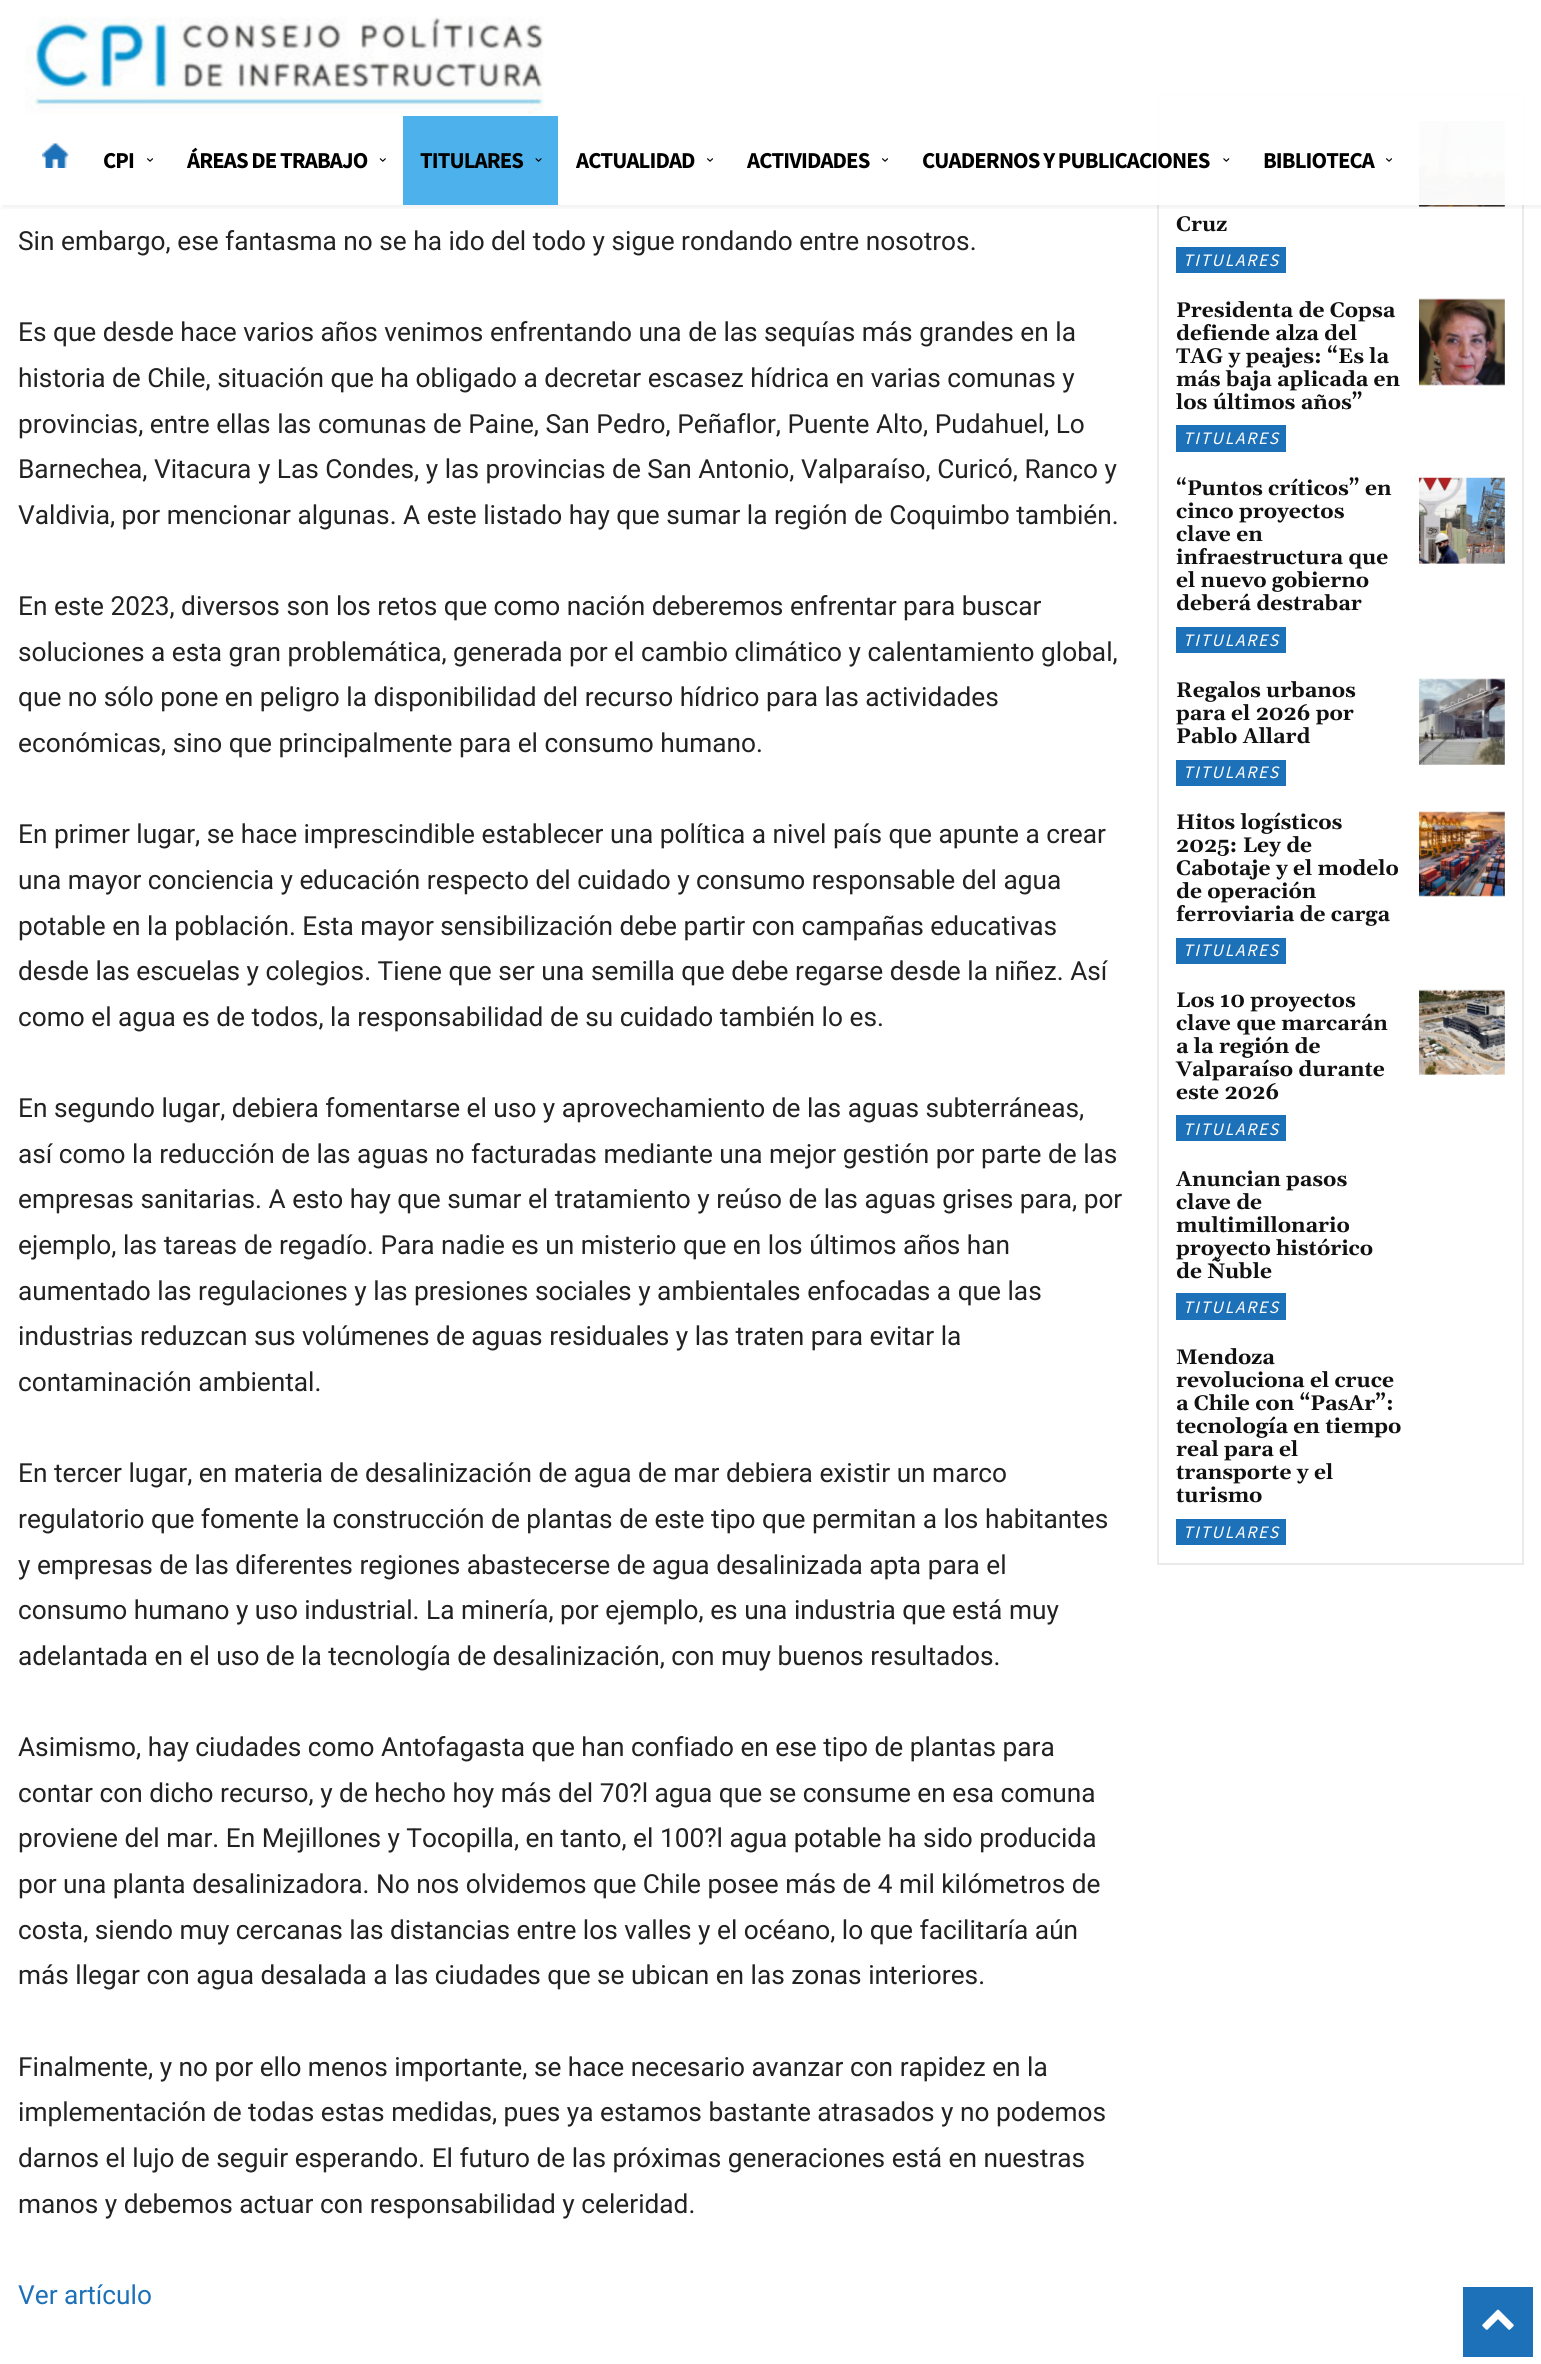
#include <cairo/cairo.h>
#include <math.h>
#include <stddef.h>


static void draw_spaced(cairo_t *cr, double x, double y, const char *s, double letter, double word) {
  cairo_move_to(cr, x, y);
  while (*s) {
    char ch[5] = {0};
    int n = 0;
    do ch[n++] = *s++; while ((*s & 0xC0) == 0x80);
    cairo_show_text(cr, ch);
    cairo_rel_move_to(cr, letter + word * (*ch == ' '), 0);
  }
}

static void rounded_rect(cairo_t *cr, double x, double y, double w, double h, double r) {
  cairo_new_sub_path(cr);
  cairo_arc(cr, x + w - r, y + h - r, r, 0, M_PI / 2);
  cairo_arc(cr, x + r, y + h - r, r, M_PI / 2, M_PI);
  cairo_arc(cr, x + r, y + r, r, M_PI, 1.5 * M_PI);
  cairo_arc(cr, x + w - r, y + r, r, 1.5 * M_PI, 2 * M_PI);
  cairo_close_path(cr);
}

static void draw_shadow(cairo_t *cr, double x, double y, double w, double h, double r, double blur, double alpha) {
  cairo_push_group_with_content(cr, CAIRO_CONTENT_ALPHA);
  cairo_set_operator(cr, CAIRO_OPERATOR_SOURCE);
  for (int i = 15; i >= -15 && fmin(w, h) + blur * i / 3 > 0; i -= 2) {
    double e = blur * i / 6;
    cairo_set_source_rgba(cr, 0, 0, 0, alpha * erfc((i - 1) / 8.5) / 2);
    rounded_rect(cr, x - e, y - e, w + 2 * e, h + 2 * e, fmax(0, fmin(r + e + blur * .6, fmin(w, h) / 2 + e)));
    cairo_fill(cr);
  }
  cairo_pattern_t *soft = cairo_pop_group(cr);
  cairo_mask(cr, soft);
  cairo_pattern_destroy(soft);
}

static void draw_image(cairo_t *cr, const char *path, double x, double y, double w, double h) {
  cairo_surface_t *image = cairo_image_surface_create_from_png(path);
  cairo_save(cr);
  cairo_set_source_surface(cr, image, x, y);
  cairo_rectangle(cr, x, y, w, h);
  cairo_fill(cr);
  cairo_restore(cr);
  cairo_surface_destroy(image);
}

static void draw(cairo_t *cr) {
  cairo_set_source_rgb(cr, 1, 1, 1);
  cairo_paint(cr);
  cairo_rectangle(cr, 1158, 94, 365, 1470);
  cairo_set_source_rgb(cr, 234 / 255.0, 234 / 255.0, 234 / 255.0);
  cairo_stroke(cr);
  draw_image(cr, "images/10.png", 1419, 121, 86, 86);
  cairo_set_source_rgba(cr, 1, 1, 1, 0.97);
  cairo_rectangle(cr, 1157, 93, 367, 112);
  cairo_fill(cr);
  draw_image(cr, "images/1.png", 25, 4, 525, 110);
  cairo_save(cr);
  cairo_rectangle(cr, 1, 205, 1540, 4);
  cairo_clip(cr);
  cairo_set_source_rgb(cr, 0, 0, 0);
  draw_shadow(cr, 2, 4, 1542, 204, 0, 3.5, 0.06);
  cairo_restore(cr);
  draw_image(cr, "images/2.png", 42, 143, 27, 25);
  draw_image(cr, "images/3.png", 147, 158, 6, 4);
  draw_image(cr, "images/4.png", 379, 158, 7, 4);
  cairo_set_source_rgb(cr, 77 / 255.0, 178 / 255.0, 236 / 255.0);
  cairo_rectangle(cr, 403, 116, 155, 89);
  cairo_fill(cr);
  draw_image(cr, "images/5.png", 535, 158, 7, 4);
  draw_image(cr, "images/6.png", 707, 158, 6, 4);
  draw_image(cr, "images/7.png", 882, 158, 6, 4);
  draw_image(cr, "images/8.png", 1223, 158, 7, 4);
  draw_image(cr, "images/9.png", 1386, 158, 6, 4);
  cairo_set_source_rgb(cr, 29 / 255.0, 113 / 255.0, 184 / 255.0);
  cairo_rectangle(cr, 1176, 247, 110, 26);
  cairo_fill(cr);
  cairo_rectangle(cr, 1176, 425, 110, 27);
  cairo_fill(cr);
  draw_image(cr, "images/11.png", 1419, 298, 86, 88);
  cairo_rectangle(cr, 1176, 627, 110, 26);
  cairo_fill(cr);
  draw_image(cr, "images/12.png", 1419, 477, 86, 87);
  cairo_rectangle(cr, 1176, 760, 110, 26);
  cairo_fill(cr);
  draw_image(cr, "images/13.png", 1419, 678, 86, 87);
  cairo_rectangle(cr, 1176, 938, 110, 26);
  cairo_fill(cr);
  draw_image(cr, "images/14.png", 1419, 811, 86, 86);
  cairo_rectangle(cr, 1176, 1115, 110, 26);
  cairo_fill(cr);
  draw_image(cr, "images/15.png", 1419, 989, 86, 86);
  cairo_rectangle(cr, 1176, 1293, 110, 27);
  cairo_fill(cr);
  cairo_rectangle(cr, 1176, 1519, 110, 26);
  cairo_fill(cr);
  cairo_rectangle(cr, 1463, 2287, 70, 70);
  cairo_fill(cr);
  draw_image(cr, "images/16.png", 1482, 2309, 32, 21);
  cairo_select_font_face(cr, "Source Sans Pro", CAIRO_FONT_SLANT_NORMAL, CAIRO_FONT_WEIGHT_BOLD);
  cairo_set_font_size(cr, 22.75);
  cairo_set_source_rgb(cr, 0, 0, 0);
  draw_spaced(cr, 103, 168, "CPI", -0.9, 0);
  draw_spaced(cr, 187, 168, "ÁREAS DE TRABAJO", -0.9, 0);
  draw_spaced(cr, 420, 168, "TITULARES", -0.9, 0);
  draw_spaced(cr, 576, 168, "ACTUALIDAD", -0.9, 0);
  draw_spaced(cr, 747, 168, "ACTIVIDADES", -0.9, 0);
  draw_spaced(cr, 922, 168, "CUADERNOS Y PUBLICACIONES", -0.9, 0);
  draw_spaced(cr, 1263, 168, "BIBLIOTECA", -0.9, 0);
  cairo_select_font_face(cr, "Roboto", CAIRO_FONT_SLANT_NORMAL, CAIRO_FONT_WEIGHT_NORMAL);
  cairo_set_font_size(cr, 26.25);
  cairo_set_source_rgb(cr, 34 / 255.0, 34 / 255.0, 34 / 255.0);
  cairo_move_to(cr, 18, 250);
  cairo_show_text(cr, "Sin embargo, ese fantasma no se ha ido del todo y sigue rondando entre nosotros.");
  cairo_move_to(cr, 18, 341);
  cairo_show_text(cr, "Es que desde hace varios años venimos enfrentando una de las sequías más grandes en la");
  cairo_move_to(cr, 18, 387);
  cairo_show_text(cr, "historia de Chile, situación que ha obligado a decretar escasez hídrica en varias comunas y");
  cairo_move_to(cr, 18, 433);
  cairo_show_text(cr, "provincias, entre ellas las comunas de Paine, San Pedro, Peñaflor, Puente Alto, Pudahuel, Lo");
  cairo_move_to(cr, 18, 478);
  cairo_show_text(cr, "Barnechea, Vitacura y Las Condes, y las provincias de San Antonio, Valparaíso, Curicó, Ranco y");
  cairo_move_to(cr, 18, 524);
  cairo_show_text(cr, "Valdivia, por mencionar algunas. A este listado hay que sumar la región de Coquimbo también.");
  cairo_move_to(cr, 18, 615);
  cairo_show_text(cr, "En este 2023, diversos son los retos que como nación deberemos enfrentar para buscar");
  cairo_move_to(cr, 18, 661);
  cairo_show_text(cr, "soluciones a esta gran problemática, generada por el cambio climático y calentamiento global,");
  cairo_move_to(cr, 18, 706);
  cairo_show_text(cr, "que no sólo pone en peligro la disponibilidad del recurso hídrico para las actividades");
  cairo_move_to(cr, 18, 752);
  cairo_show_text(cr, "económicas, sino que principalmente para el consumo humano.");
  cairo_move_to(cr, 18, 843);
  cairo_show_text(cr, "En primer lugar, se hace imprescindible establecer una política a nivel país que apunte a crear");
  cairo_move_to(cr, 18, 889);
  cairo_show_text(cr, "una mayor conciencia y educación respecto del cuidado y consumo responsable del agua");
  cairo_move_to(cr, 18, 935);
  cairo_show_text(cr, "potable en la población. Esta mayor sensibilización debe partir con campañas educativas");
  cairo_move_to(cr, 18, 980);
  cairo_show_text(cr, "desde las escuelas y colegios. Tiene que ser una semilla que debe regarse desde la niñez. Así");
  cairo_move_to(cr, 18, 1026);
  cairo_show_text(cr, "como el agua es de todos, la responsabilidad de su cuidado también lo es.");
  cairo_move_to(cr, 18, 1117);
  cairo_show_text(cr, "En segundo lugar, debiera fomentarse el uso y aprovechamiento de las aguas subterráneas,");
  cairo_move_to(cr, 18, 1163);
  cairo_show_text(cr, "así como la reducción de las aguas no facturadas mediante una mejor gestión por parte de las");
  cairo_move_to(cr, 18, 1208);
  cairo_show_text(cr, "empresas sanitarias. A esto hay que sumar el tratamiento y reúso de las aguas grises para, por");
  cairo_move_to(cr, 18, 1254);
  cairo_show_text(cr, "ejemplo, las tareas de regadío. Para nadie es un misterio que en los últimos años han");
  cairo_move_to(cr, 18, 1300);
  cairo_show_text(cr, "aumentado las regulaciones y las presiones sociales y ambientales enfocadas a que las");
  cairo_move_to(cr, 18, 1345);
  cairo_show_text(cr, "industrias reduzcan sus volúmenes de aguas residuales y las traten para evitar la");
  cairo_move_to(cr, 18, 1391);
  cairo_show_text(cr, "contaminación ambiental.");
  cairo_move_to(cr, 18, 1482);
  cairo_show_text(cr, "En tercer lugar, en materia de desalinización de agua de mar debiera existir un marco");
  cairo_move_to(cr, 18, 1528);
  cairo_show_text(cr, "regulatorio que fomente la construcción de plantas de este tipo que permitan a los habitantes");
  cairo_move_to(cr, 18, 1574);
  cairo_show_text(cr, "y empresas de las diferentes regiones abastecerse de agua desalinizada apta para el");
  cairo_move_to(cr, 18, 1619);
  cairo_show_text(cr, "consumo humano y uso industrial. La minería, por ejemplo, es una industria que está muy");
  cairo_move_to(cr, 18, 1665);
  cairo_show_text(cr, "adelantada en el uso de la tecnología de desalinización, con muy buenos resultados.");
  cairo_move_to(cr, 18, 1756);
  cairo_show_text(cr, "Asimismo, hay ciudades como Antofagasta que han confiado en ese tipo de plantas para");
  cairo_move_to(cr, 18, 1802);
  cairo_show_text(cr, "contar con dicho recurso, y de hecho hoy más del 70?l agua que se consume en esa comuna");
  cairo_move_to(cr, 18, 1847);
  cairo_show_text(cr, "proviene del mar. En Mejillones y Tocopilla, en tanto, el 100?l agua potable ha sido producida");
  cairo_move_to(cr, 18, 1893);
  cairo_show_text(cr, "por una planta desalinizadora. No nos olvidemos que Chile posee más de 4 mil kilómetros de");
  cairo_move_to(cr, 18, 1939);
  cairo_show_text(cr, "costa, siendo muy cercanas las distancias entre los valles y el océano, lo que facilitaría aún");
  cairo_move_to(cr, 18, 1984);
  cairo_show_text(cr, "más llegar con agua desalada a las ciudades que se ubican en las zonas interiores.");
  cairo_move_to(cr, 18, 2076);
  cairo_show_text(cr, "Finalmente, y no por ello menos importante, se hace necesario avanzar con rapidez en la");
  cairo_move_to(cr, 18, 2121);
  cairo_show_text(cr, "implementación de todas estas medidas, pues ya estamos bastante atrasados y no podemos");
  cairo_move_to(cr, 18, 2167);
  cairo_show_text(cr, "darnos el lujo de seguir esperando. El futuro de las próximas generaciones está en nuestras");
  cairo_move_to(cr, 18, 2213);
  cairo_show_text(cr, "manos y debemos actuar con responsabilidad y celeridad.");
  cairo_set_source_rgb(cr, 29 / 255.0, 113 / 255.0, 184 / 255.0);
  cairo_move_to(cr, 18, 2304);
  cairo_show_text(cr, "Ver artículo");
  cairo_select_font_face(cr, "Gelasio", CAIRO_FONT_SLANT_NORMAL, CAIRO_FONT_WEIGHT_BOLD);
  cairo_set_font_size(cr, 21);
  cairo_set_source_rgb(cr, 17 / 255.0, 17 / 255.0, 17 / 255.0);
  cairo_move_to(cr, 1176, 231);
  cairo_show_text(cr, "Cruz");
  cairo_select_font_face(cr, "Source Sans Pro", CAIRO_FONT_SLANT_ITALIC, CAIRO_FONT_WEIGHT_NORMAL);
  cairo_set_font_size(cr, 17.5);
  cairo_set_source_rgb(cr, 1, 1, 1);
  draw_spaced(cr, 1183, 266, "TITULARES", 1.75, 0);
  cairo_select_font_face(cr, "Gelasio", CAIRO_FONT_SLANT_NORMAL, CAIRO_FONT_WEIGHT_BOLD);
  cairo_set_font_size(cr, 21);
  cairo_set_source_rgb(cr, 17 / 255.0, 17 / 255.0, 17 / 255.0);
  cairo_move_to(cr, 1176, 317);
  cairo_show_text(cr, "Presidenta de Copsa");
  cairo_move_to(cr, 1176, 340);
  cairo_show_text(cr, "defiende alza del");
  cairo_move_to(cr, 1176, 363);
  cairo_show_text(cr, "TAG y peajes: “Es la");
  cairo_move_to(cr, 1176, 386);
  cairo_show_text(cr, "más baja aplicada en");
  cairo_move_to(cr, 1176, 409);
  cairo_show_text(cr, "los últimos años”");
  cairo_select_font_face(cr, "Source Sans Pro", CAIRO_FONT_SLANT_ITALIC, CAIRO_FONT_WEIGHT_NORMAL);
  cairo_set_font_size(cr, 17.5);
  cairo_set_source_rgb(cr, 1, 1, 1);
  draw_spaced(cr, 1183, 444, "TITULARES", 1.75, 0);
  cairo_select_font_face(cr, "Gelasio", CAIRO_FONT_SLANT_NORMAL, CAIRO_FONT_WEIGHT_BOLD);
  cairo_set_font_size(cr, 21);
  cairo_set_source_rgb(cr, 17 / 255.0, 17 / 255.0, 17 / 255.0);
  cairo_move_to(cr, 1176, 495);
  cairo_show_text(cr, "“Puntos críticos” en");
  cairo_move_to(cr, 1176, 518);
  cairo_show_text(cr, "cinco proyectos");
  cairo_move_to(cr, 1176, 541);
  cairo_show_text(cr, "clave en");
  cairo_move_to(cr, 1176, 564);
  cairo_show_text(cr, "infraestructura que");
  cairo_move_to(cr, 1176, 587);
  cairo_show_text(cr, "el nuevo gobierno");
  cairo_move_to(cr, 1176, 610);
  cairo_show_text(cr, "deberá destrabar");
  cairo_select_font_face(cr, "Source Sans Pro", CAIRO_FONT_SLANT_ITALIC, CAIRO_FONT_WEIGHT_NORMAL);
  cairo_set_font_size(cr, 17.5);
  cairo_set_source_rgb(cr, 1, 1, 1);
  draw_spaced(cr, 1183, 646, "TITULARES", 1.75, 0);
  cairo_select_font_face(cr, "Gelasio", CAIRO_FONT_SLANT_NORMAL, CAIRO_FONT_WEIGHT_BOLD);
  cairo_set_font_size(cr, 21);
  cairo_set_source_rgb(cr, 17 / 255.0, 17 / 255.0, 17 / 255.0);
  cairo_move_to(cr, 1176, 697);
  cairo_show_text(cr, "Regalos urbanos");
  cairo_move_to(cr, 1176, 720);
  cairo_show_text(cr, "para el 2026 por");
  cairo_move_to(cr, 1176, 743);
  cairo_show_text(cr, "Pablo Allard");
  cairo_select_font_face(cr, "Source Sans Pro", CAIRO_FONT_SLANT_ITALIC, CAIRO_FONT_WEIGHT_NORMAL);
  cairo_set_font_size(cr, 17.5);
  cairo_set_source_rgb(cr, 1, 1, 1);
  draw_spaced(cr, 1183, 778, "TITULARES", 1.75, 0);
  cairo_select_font_face(cr, "Gelasio", CAIRO_FONT_SLANT_NORMAL, CAIRO_FONT_WEIGHT_BOLD);
  cairo_set_font_size(cr, 21);
  cairo_set_source_rgb(cr, 17 / 255.0, 17 / 255.0, 17 / 255.0);
  cairo_move_to(cr, 1176, 829);
  cairo_show_text(cr, "Hitos logísticos");
  cairo_move_to(cr, 1176, 852);
  cairo_show_text(cr, "2025: Ley de");
  cairo_move_to(cr, 1176, 875);
  cairo_show_text(cr, "Cabotaje y el modelo");
  cairo_move_to(cr, 1176, 898);
  cairo_show_text(cr, "de operación");
  cairo_move_to(cr, 1176, 921);
  cairo_show_text(cr, "ferroviaria de carga");
  cairo_select_font_face(cr, "Source Sans Pro", CAIRO_FONT_SLANT_ITALIC, CAIRO_FONT_WEIGHT_NORMAL);
  cairo_set_font_size(cr, 17.5);
  cairo_set_source_rgb(cr, 1, 1, 1);
  draw_spaced(cr, 1183, 956, "TITULARES", 1.75, 0);
  cairo_select_font_face(cr, "Gelasio", CAIRO_FONT_SLANT_NORMAL, CAIRO_FONT_WEIGHT_BOLD);
  cairo_set_font_size(cr, 21);
  cairo_set_source_rgb(cr, 17 / 255.0, 17 / 255.0, 17 / 255.0);
  cairo_move_to(cr, 1176, 1007);
  cairo_show_text(cr, "Los 10 proyectos");
  cairo_move_to(cr, 1176, 1030);
  cairo_show_text(cr, "clave que marcarán");
  cairo_move_to(cr, 1176, 1053);
  cairo_show_text(cr, "a la región de");
  cairo_move_to(cr, 1176, 1076);
  cairo_show_text(cr, "Valparaíso durante");
  cairo_move_to(cr, 1176, 1099);
  cairo_show_text(cr, "este 2026");
  cairo_select_font_face(cr, "Source Sans Pro", CAIRO_FONT_SLANT_ITALIC, CAIRO_FONT_WEIGHT_NORMAL);
  cairo_set_font_size(cr, 17.5);
  cairo_set_source_rgb(cr, 1, 1, 1);
  draw_spaced(cr, 1183, 1135, "TITULARES", 1.75, 0);
  cairo_select_font_face(cr, "Gelasio", CAIRO_FONT_SLANT_NORMAL, CAIRO_FONT_WEIGHT_BOLD);
  cairo_set_font_size(cr, 21);
  cairo_set_source_rgb(cr, 17 / 255.0, 17 / 255.0, 17 / 255.0);
  cairo_move_to(cr, 1176, 1186);
  cairo_show_text(cr, "Anuncian pasos");
  cairo_move_to(cr, 1176, 1209);
  cairo_show_text(cr, "clave de");
  cairo_move_to(cr, 1176, 1232);
  cairo_show_text(cr, "multimillonario");
  cairo_move_to(cr, 1176, 1255);
  cairo_show_text(cr, "proyecto histórico");
  cairo_move_to(cr, 1176, 1278);
  cairo_show_text(cr, "de Ñuble");
  cairo_select_font_face(cr, "Source Sans Pro", CAIRO_FONT_SLANT_ITALIC, CAIRO_FONT_WEIGHT_NORMAL);
  cairo_set_font_size(cr, 17.5);
  cairo_set_source_rgb(cr, 1, 1, 1);
  draw_spaced(cr, 1183, 1313, "TITULARES", 1.75, 0);
  cairo_select_font_face(cr, "Gelasio", CAIRO_FONT_SLANT_NORMAL, CAIRO_FONT_WEIGHT_BOLD);
  cairo_set_font_size(cr, 21);
  cairo_set_source_rgb(cr, 17 / 255.0, 17 / 255.0, 17 / 255.0);
  cairo_move_to(cr, 1176, 1364);
  cairo_show_text(cr, "Mendoza");
  cairo_move_to(cr, 1176, 1387);
  cairo_show_text(cr, "revoluciona el cruce");
  cairo_move_to(cr, 1176, 1410);
  cairo_show_text(cr, "a Chile con “PasAr”:");
  cairo_move_to(cr, 1176, 1433);
  cairo_show_text(cr, "tecnología en tiempo");
  cairo_move_to(cr, 1176, 1456);
  cairo_show_text(cr, "real para el");
  cairo_move_to(cr, 1176, 1479);
  cairo_show_text(cr, "transporte y el");
  cairo_move_to(cr, 1176, 1502);
  cairo_show_text(cr, "turismo");
  cairo_select_font_face(cr, "Source Sans Pro", CAIRO_FONT_SLANT_ITALIC, CAIRO_FONT_WEIGHT_NORMAL);
  cairo_set_font_size(cr, 17.5);
  cairo_set_source_rgb(cr, 1, 1, 1);
  draw_spaced(cr, 1183, 1538, "TITULARES", 1.75, 0);
}

int main(void) {
  cairo_surface_t *surface = cairo_image_surface_create(CAIRO_FORMAT_RGB24, 1541, 2364);
  cairo_t *cr = cairo_create(surface);
  cairo_font_options_t *options = cairo_font_options_create();
  cairo_font_options_set_hint_metrics(options, CAIRO_HINT_METRICS_OFF);
  cairo_font_options_set_hint_style(options, CAIRO_HINT_STYLE_NONE);
  cairo_set_font_options(cr, options);
  cairo_set_miter_limit(cr, 4);
  draw(cr);
  cairo_surface_write_to_png(surface, "out.png");
  cairo_font_options_destroy(options);
  cairo_destroy(cr);
  cairo_surface_destroy(surface);
  return 0;
}
